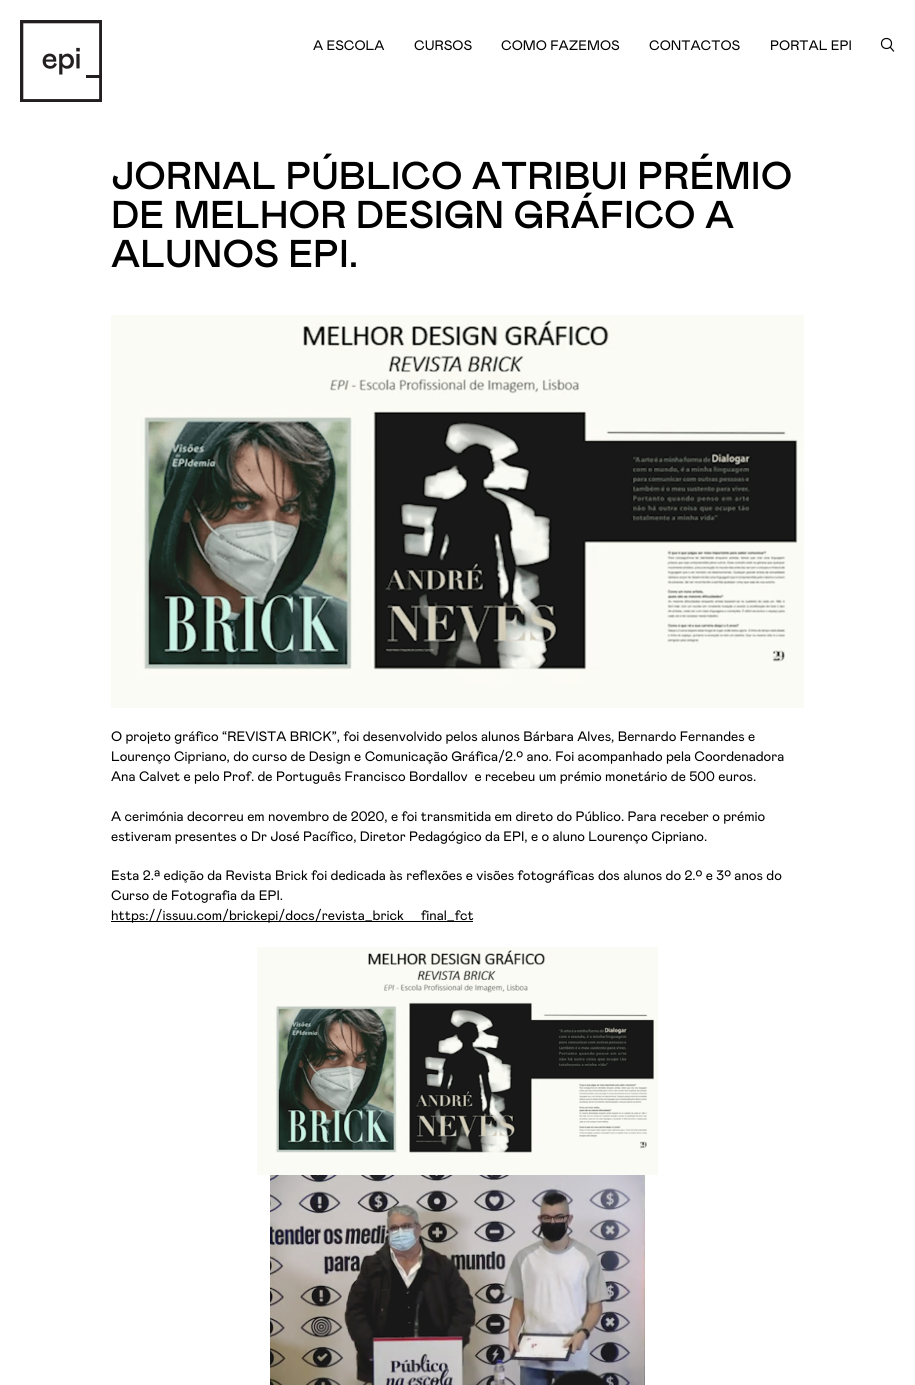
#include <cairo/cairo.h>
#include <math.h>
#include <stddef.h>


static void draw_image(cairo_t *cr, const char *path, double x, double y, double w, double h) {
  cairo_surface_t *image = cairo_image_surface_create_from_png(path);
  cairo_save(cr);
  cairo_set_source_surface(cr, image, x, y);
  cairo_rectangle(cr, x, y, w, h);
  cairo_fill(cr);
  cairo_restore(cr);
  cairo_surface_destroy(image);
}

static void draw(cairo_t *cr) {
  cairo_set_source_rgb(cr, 1, 1, 1);
  cairo_paint(cr);
  draw_image(cr, "images/1.png", 20, 20, 82, 82);
  cairo_arc(cr, 886.5, 43.5, 5, 0, 2 * M_PI);
  cairo_set_source_rgb(cr, 0, 0, 0);
  cairo_set_line_width(cr, 1.2);
  cairo_stroke(cr);
  cairo_new_path(cr);
  cairo_move_to(cr, 890.5, 47.5);
  cairo_line_to(cr, 893.5, 51);
  cairo_set_line_cap(cr, CAIRO_LINE_CAP_SQUARE);
  cairo_stroke(cr);
  draw_image(cr, "images/2.png", 111, 315, 693, 393);
  cairo_rectangle(cr, 111, 921, 362, 1);
  cairo_fill(cr);
  draw_image(cr, "images/3.png", 257, 947, 401, 228);
  draw_image(cr, "images/4.png", 270, 1175, 375, 210);
  cairo_select_font_face(cr, "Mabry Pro", CAIRO_FONT_SLANT_NORMAL, CAIRO_FONT_WEIGHT_NORMAL);
  cairo_set_font_size(cr, 13.7);
  cairo_move_to(cr, 313, 50);
  cairo_show_text(cr, "A ESCOLA");
  cairo_move_to(cr, 414, 50);
  cairo_show_text(cr, "CURSOS");
  cairo_move_to(cr, 501, 50);
  cairo_show_text(cr, "COMO FAZEMOS");
  cairo_move_to(cr, 649, 50);
  cairo_show_text(cr, "CONTACTOS");
  cairo_move_to(cr, 770, 50);
  cairo_show_text(cr, "PORTAL EPI");
  cairo_select_font_face(cr, "Mabry Pro Medium", CAIRO_FONT_SLANT_NORMAL, CAIRO_FONT_WEIGHT_NORMAL);
  cairo_set_font_size(cr, 38.75);
  cairo_move_to(cr, 111, 189);
  cairo_show_text(cr, "JORNAL PÚBLICO ATRIBUI PRÉMIO");
  cairo_move_to(cr, 111, 228);
  cairo_show_text(cr, "DE MELHOR DESIGN GRÁFICO A");
  cairo_move_to(cr, 111, 267);
  cairo_show_text(cr, "ALUNOS EPI.");
  cairo_select_font_face(cr, "Mabry Pro", CAIRO_FONT_SLANT_NORMAL, CAIRO_FONT_WEIGHT_NORMAL);
  cairo_set_font_size(cr, 13.7);
  cairo_move_to(cr, 111, 741);
  cairo_show_text(cr, "O projeto gráfico “REVISTA BRICK”, foi desenvolvido pelos alunos Bárbara Alves, Bernardo Fernandes e");
  cairo_move_to(cr, 111, 761);
  cairo_show_text(cr, "Lourenço Cipriano, do curso de Design e Comunicação Gráfica/2.º ano. Foi acompanhado pela Coordenadora");
  cairo_move_to(cr, 111, 781);
  cairo_show_text(cr, "Ana Calvet e pelo Prof. de Português Francisco Bordallov  e recebeu um prémio monetário de 500 euros.");
  cairo_move_to(cr, 111, 821);
  cairo_show_text(cr, "A cerimónia decorreu em novembro de 2020, e foi transmitida em direto do Público. Para receber o prémio");
  cairo_move_to(cr, 111, 841);
  cairo_show_text(cr, "estiveram presentes o Dr José Pacífico, Diretor Pedagógico da EPI, e o aluno Lourenço Cipriano.");
  cairo_move_to(cr, 111, 880);
  cairo_show_text(cr, "Esta 2.ª edição da Revista Brick foi dedicada às reflexões e visões fotográficas dos alunos do 2.º e 3º anos do");
  cairo_move_to(cr, 111, 900);
  cairo_show_text(cr, "Curso de Fotografia da EPI.");
  cairo_move_to(cr, 111, 920);
  cairo_show_text(cr, "https://issuu.com/brickepi/docs/revista_brick");
  cairo_move_to(cr, 421, 920);
  cairo_show_text(cr, "final_fct");
}

int main(void) {
  cairo_surface_t *surface = cairo_image_surface_create(CAIRO_FORMAT_RGB24, 915, 1385);
  cairo_t *cr = cairo_create(surface);
  cairo_font_options_t *options = cairo_font_options_create();
  cairo_font_options_set_hint_metrics(options, CAIRO_HINT_METRICS_OFF);
  cairo_font_options_set_hint_style(options, CAIRO_HINT_STYLE_NONE);
  cairo_set_font_options(cr, options);
  cairo_set_miter_limit(cr, 4);
  draw(cr);
  cairo_surface_write_to_png(surface, "out.png");
  cairo_font_options_destroy(options);
  cairo_destroy(cr);
  cairo_surface_destroy(surface);
  return 0;
}
